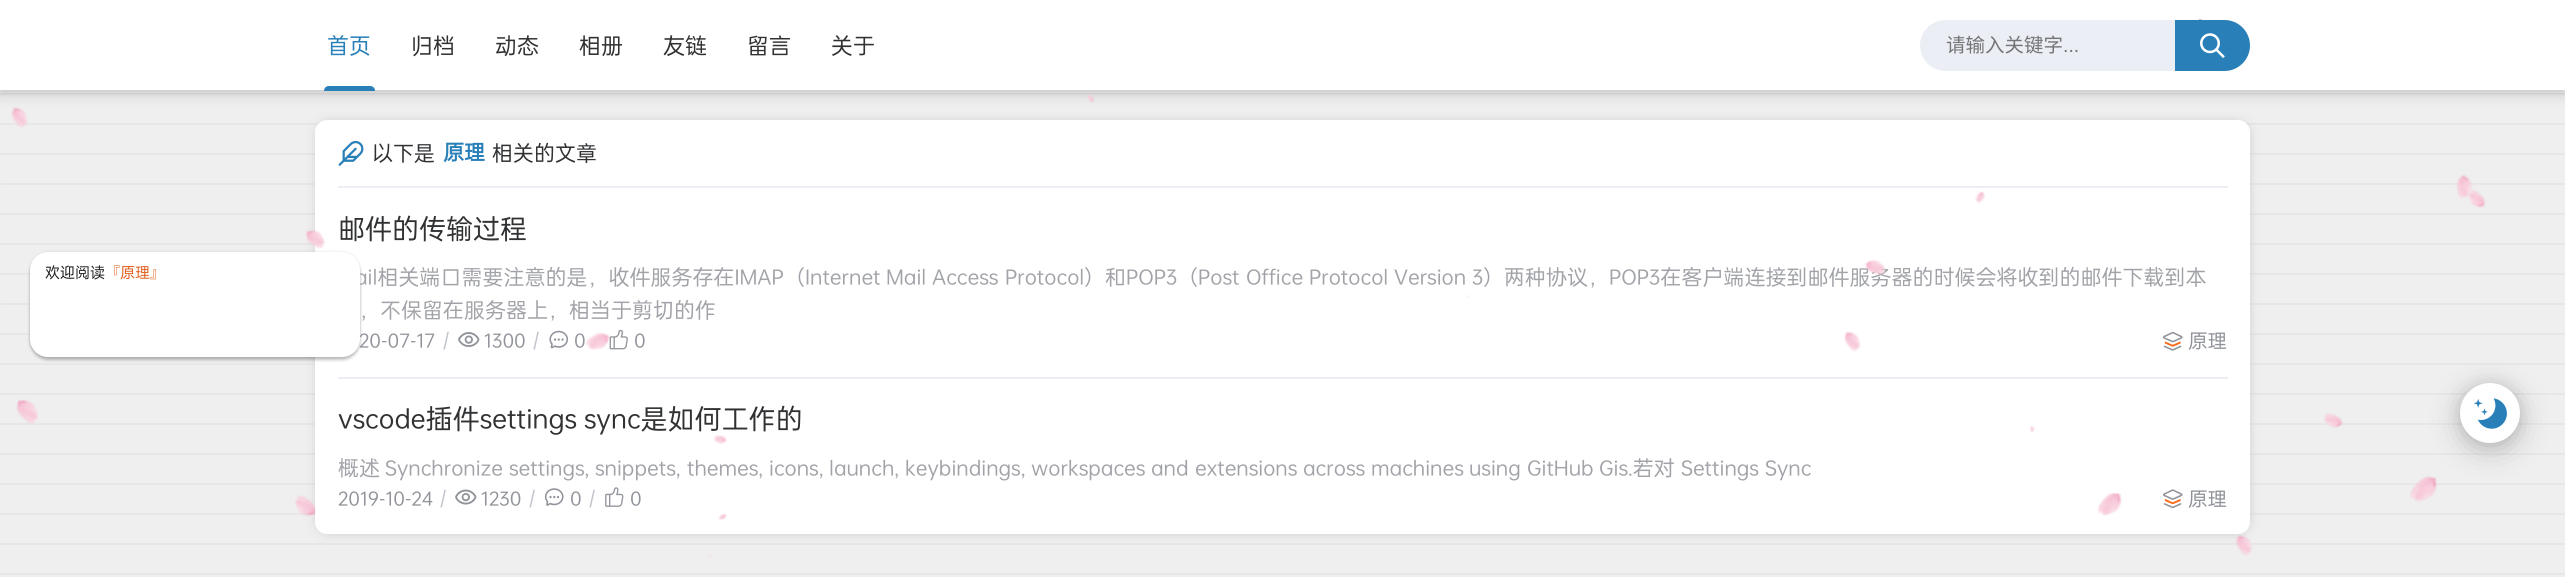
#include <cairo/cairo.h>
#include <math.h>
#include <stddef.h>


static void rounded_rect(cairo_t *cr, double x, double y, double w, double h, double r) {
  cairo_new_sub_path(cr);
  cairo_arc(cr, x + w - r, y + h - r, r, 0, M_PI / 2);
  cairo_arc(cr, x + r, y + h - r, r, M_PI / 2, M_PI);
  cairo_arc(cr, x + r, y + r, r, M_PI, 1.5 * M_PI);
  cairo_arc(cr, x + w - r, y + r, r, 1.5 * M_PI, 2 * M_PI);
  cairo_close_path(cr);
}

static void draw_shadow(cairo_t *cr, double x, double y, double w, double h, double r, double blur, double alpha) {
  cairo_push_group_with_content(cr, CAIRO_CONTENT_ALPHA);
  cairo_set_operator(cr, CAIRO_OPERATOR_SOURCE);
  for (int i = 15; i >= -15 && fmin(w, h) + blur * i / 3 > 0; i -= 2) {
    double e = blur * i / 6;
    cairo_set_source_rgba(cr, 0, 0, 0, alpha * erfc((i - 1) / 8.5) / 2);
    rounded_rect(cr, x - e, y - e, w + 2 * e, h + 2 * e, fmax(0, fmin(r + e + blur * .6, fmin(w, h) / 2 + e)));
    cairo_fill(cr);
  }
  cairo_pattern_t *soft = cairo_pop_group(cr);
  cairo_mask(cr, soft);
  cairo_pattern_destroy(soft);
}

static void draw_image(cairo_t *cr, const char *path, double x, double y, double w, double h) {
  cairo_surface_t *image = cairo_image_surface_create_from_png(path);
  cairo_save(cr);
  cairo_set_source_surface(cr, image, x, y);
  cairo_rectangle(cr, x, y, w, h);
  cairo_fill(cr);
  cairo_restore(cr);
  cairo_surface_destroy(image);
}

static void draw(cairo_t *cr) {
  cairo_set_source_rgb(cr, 239 / 255.0, 239 / 255.0, 239 / 255.0);
  cairo_paint(cr);
  draw_image(cr, "images/13.png", 0, 93, 2565, 482);
  cairo_set_source_rgb(cr, 0, 0, 0);
  draw_shadow(cr, 0, 3, 2565, 90, 0, 7.5, 0.2);
  cairo_set_source_rgb(cr, 1, 1, 1);
  cairo_rectangle(cr, 0, 0, 2565, 90);
  cairo_fill(cr);
  cairo_set_source_rgb(cr, 41 / 255.0, 128 / 255.0, 185 / 255.0);
  cairo_new_path(cr);
  cairo_move_to(cr, 329, 86);
  cairo_line_to(cr, 370, 86);
  cairo_curve_to(cr, 373, 86, 375, 88, 375, 91);
  cairo_line_to(cr, 324, 91);
  cairo_curve_to(cr, 324, 88, 326, 86, 329, 86);
  cairo_close_path(cr);
  cairo_fill(cr);
  draw_image(cr, "images/1.png", 2198, 19, 25, 53);
  cairo_set_source_rgb(cr, 235 / 255.0, 238 / 255.0, 245 / 255.0);
  cairo_new_path(cr);
  cairo_move_to(cr, 1945.5, 20);
  cairo_line_to(cr, 2175, 20);
  cairo_line_to(cr, 2175, 71);
  cairo_line_to(cr, 1945.5, 71);
  cairo_curve_to(cr, 1931.5, 71, 1920, 59.5, 1920, 45.5);
  cairo_curve_to(cr, 1920, 31.5, 1931.5, 20, 1945.5, 20);
  cairo_close_path(cr);
  cairo_fill(cr);
  cairo_set_source_rgb(cr, 41 / 255.0, 128 / 255.0, 185 / 255.0);
  cairo_new_path(cr);
  cairo_move_to(cr, 2175, 20);
  cairo_line_to(cr, 2224.5, 20);
  cairo_curve_to(cr, 2238.5, 20, 2250, 31.5, 2250, 45.5);
  cairo_curve_to(cr, 2250, 59.5, 2238.5, 71, 2224.5, 71);
  cairo_line_to(cr, 2175, 71);
  cairo_close_path(cr);
  cairo_fill(cr);
  draw_image(cr, "images/2.png", 2200, 33, 25, 25);
  cairo_set_source_rgb(cr, 148 / 255.0, 148 / 255.0, 148 / 255.0);
  draw_shadow(cr, 323, 128, 1920, 399, 5, 7.5, 1);
  cairo_set_source_rgb(cr, 1, 1, 1);
  rounded_rect(cr, 315, 120, 1935, 414, 12);
  cairo_fill(cr);
  cairo_set_source_rgb(cr, 235 / 255.0, 238 / 255.0, 245 / 255.0);
  cairo_rectangle(cr, 338, 186, 1890, 2);
  cairo_fill(cr);
  draw_image(cr, "images/3.png", 338, 140, 26, 26);
  cairo_rectangle(cr, 338, 377, 1890, 2);
  cairo_fill(cr);
  draw_image(cr, "images/4.png", 458, 332, 22, 15);
  draw_image(cr, "images/5.png", 549, 330, 19, 19);
  draw_image(cr, "images/6.png", 609, 329, 19, 21);
  draw_image(cr, "images/7.png", 2163, 331, 20, 20);
  draw_image(cr, "images/8.png", 455, 489, 22, 16);
  draw_image(cr, "images/9.png", 544, 488, 20, 18);
  draw_image(cr, "images/10.png", 605, 487, 19, 20);
  draw_image(cr, "images/11.png", 2163, 489, 20, 20);
  cairo_set_source_rgb(cr, 0, 0, 0);
  draw_shadow(cr, 2460, 390, 60, 60, 30, 15, 0.2);
  draw_shadow(cr, 2460, 383, 60, 60, 30, 7.5, 0.1);
  cairo_set_source_rgb(cr, 1, 1, 1);
  cairo_arc(cr, 2490, 413, 30, 0, 2 * M_PI);
  cairo_fill(cr);
  draw_image(cr, "images/12.png", 2473, 398, 34, 31);
  cairo_set_source_rgb(cr, 0, 0, 0);
  draw_shadow(cr, 30, 255, 330, 105, 18, 1.5, 0.24);
  draw_shadow(cr, 30, 252, 330, 105, 18, 1.5, 0.12);
  cairo_select_font_face(cr, "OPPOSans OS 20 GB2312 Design", CAIRO_FONT_SLANT_NORMAL, CAIRO_FONT_WEIGHT_NORMAL);
  cairo_set_font_size(cr, 22);
  cairo_set_source_rgb(cr, 41 / 255.0, 128 / 255.0, 185 / 255.0);
  cairo_move_to(cr, 327, 54);
  cairo_show_text(cr, "首页");
  cairo_set_source_rgb(cr, 48 / 255.0, 49 / 255.0, 51 / 255.0);
  cairo_move_to(cr, 411, 54);
  cairo_show_text(cr, "归档");
  cairo_move_to(cr, 495, 54);
  cairo_show_text(cr, "动态");
  cairo_move_to(cr, 579, 54);
  cairo_show_text(cr, "相册");
  cairo_move_to(cr, 663, 54);
  cairo_show_text(cr, "友链");
  cairo_move_to(cr, 747, 54);
  cairo_show_text(cr, "留言");
  cairo_move_to(cr, 831, 54);
  cairo_show_text(cr, "关于");
  cairo_select_font_face(cr, "Noto Sans CJK SC", CAIRO_FONT_SLANT_NORMAL, CAIRO_FONT_WEIGHT_NORMAL);
  cairo_set_font_size(cr, 19.5);
  cairo_set_source_rgb(cr, 117 / 255.0, 117 / 255.0, 117 / 255.0);
  cairo_move_to(cr, 1946, 52);
  cairo_show_text(cr, "请输入关键字");
  cairo_select_font_face(cr, "Liberation Sans", CAIRO_FONT_SLANT_NORMAL, CAIRO_FONT_WEIGHT_NORMAL);
  cairo_move_to(cr, 2063, 52);
  cairo_show_text(cr, "...");
  cairo_select_font_face(cr, "OPPOSans OS 20 GB2312 Design", CAIRO_FONT_SLANT_NORMAL, CAIRO_FONT_WEIGHT_NORMAL);
  cairo_set_font_size(cr, 21);
  cairo_set_source_rgb(cr, 48 / 255.0, 49 / 255.0, 51 / 255.0);
  cairo_move_to(cr, 372, 161);
  cairo_show_text(cr, "以下是");
  cairo_select_font_face(cr, "OPPOSans OS 20 GB2312 Design", CAIRO_FONT_SLANT_NORMAL, CAIRO_FONT_WEIGHT_BOLD);
  cairo_set_source_rgb(cr, 41 / 255.0, 128 / 255.0, 185 / 255.0);
  cairo_move_to(cr, 443, 160);
  cairo_show_text(cr, "原理");
  cairo_select_font_face(cr, "OPPOSans OS 20 GB2312 Design", CAIRO_FONT_SLANT_NORMAL, CAIRO_FONT_WEIGHT_NORMAL);
  cairo_set_source_rgb(cr, 48 / 255.0, 49 / 255.0, 51 / 255.0);
  cairo_move_to(cr, 492, 161);
  cairo_show_text(cr, "相关的文章");
  cairo_set_font_size(cr, 27);
  cairo_move_to(cr, 338, 239);
  cairo_show_text(cr, "邮件的传输过程");
  cairo_set_font_size(cr, 21);
  cairo_set_source_rgb(cr, 161 / 255.0, 163 / 255.0, 168 / 255.0);
  cairo_move_to(cr, 355, 285);
  cairo_show_text(cr, "ail相关端口需要注意的是，收件服务存在IMAP");
  cairo_select_font_face(cr, "Noto Sans CJK SC", CAIRO_FONT_SLANT_NORMAL, CAIRO_FONT_WEIGHT_NORMAL);
  cairo_move_to(cr, 784, 285);
  cairo_show_text(cr, "（");
  cairo_select_font_face(cr, "OPPOSans OS 20 GB2312 Design", CAIRO_FONT_SLANT_NORMAL, CAIRO_FONT_WEIGHT_NORMAL);
  cairo_move_to(cr, 805, 285);
  cairo_show_text(cr, "Internet");
  cairo_move_to(cr, 886, 285);
  cairo_show_text(cr, "Mail");
  cairo_move_to(cr, 932, 285);
  cairo_show_text(cr, "Access");
  cairo_move_to(cr, 1005, 285);
  cairo_show_text(cr, "Protocol");
  cairo_select_font_face(cr, "Noto Sans CJK SC", CAIRO_FONT_SLANT_NORMAL, CAIRO_FONT_WEIGHT_NORMAL);
  cairo_move_to(cr, 1084, 285);
  cairo_show_text(cr, "）");
  cairo_select_font_face(cr, "OPPOSans OS 20 GB2312 Design", CAIRO_FONT_SLANT_NORMAL, CAIRO_FONT_WEIGHT_NORMAL);
  cairo_move_to(cr, 1105, 285);
  cairo_show_text(cr, "和POP3");
  cairo_select_font_face(cr, "Noto Sans CJK SC", CAIRO_FONT_SLANT_NORMAL, CAIRO_FONT_WEIGHT_NORMAL);
  cairo_move_to(cr, 1177, 285);
  cairo_show_text(cr, "（");
  cairo_select_font_face(cr, "OPPOSans OS 20 GB2312 Design", CAIRO_FONT_SLANT_NORMAL, CAIRO_FONT_WEIGHT_NORMAL);
  cairo_move_to(cr, 1198, 285);
  cairo_show_text(cr, "Post");
  cairo_move_to(cr, 1246, 285);
  cairo_show_text(cr, "Office");
  cairo_move_to(cr, 1309, 285);
  cairo_show_text(cr, "Protocol");
  cairo_move_to(cr, 1394, 285);
  cairo_show_text(cr, "Version");
  cairo_move_to(cr, 1472, 285);
  cairo_show_text(cr, "3");
  cairo_select_font_face(cr, "Noto Sans CJK SC", CAIRO_FONT_SLANT_NORMAL, CAIRO_FONT_WEIGHT_NORMAL);
  cairo_move_to(cr, 1483, 285);
  cairo_show_text(cr, "）");
  cairo_select_font_face(cr, "OPPOSans OS 20 GB2312 Design", CAIRO_FONT_SLANT_NORMAL, CAIRO_FONT_WEIGHT_NORMAL);
  cairo_move_to(cr, 1504, 285);
  cairo_show_text(cr, "两种协议，POP3在客户端连接到邮件服务器的时候会将收到的邮件下载到本");
  cairo_move_to(cr, 359, 318);
  cairo_show_text(cr, "，不保留在服务器上，相当于剪切的作");
  cairo_set_font_size(cr, 19.5);
  cairo_set_source_rgb(cr, 144 / 255.0, 147 / 255.0, 153 / 255.0);
  cairo_move_to(cr, 359, 348);
  cairo_show_text(cr, "20-07-17");
  cairo_set_source_rgb(cr, 192 / 255.0, 196 / 255.0, 204 / 255.0);
  cairo_move_to(cr, 443, 348);
  cairo_show_text(cr, "/");
  cairo_set_source_rgb(cr, 144 / 255.0, 147 / 255.0, 153 / 255.0);
  cairo_move_to(cr, 484, 348);
  cairo_show_text(cr, "1300");
  cairo_set_source_rgb(cr, 192 / 255.0, 196 / 255.0, 204 / 255.0);
  cairo_move_to(cr, 533, 348);
  cairo_show_text(cr, "/");
  cairo_set_source_rgb(cr, 144 / 255.0, 147 / 255.0, 153 / 255.0);
  cairo_move_to(cr, 574, 348);
  cairo_show_text(cr, "0");
  cairo_move_to(cr, 634, 348);
  cairo_show_text(cr, "0");
  cairo_move_to(cr, 2188, 348);
  cairo_show_text(cr, "原理");
  cairo_set_font_size(cr, 27);
  cairo_set_source_rgb(cr, 48 / 255.0, 49 / 255.0, 51 / 255.0);
  cairo_move_to(cr, 338, 429);
  cairo_show_text(cr, "vscode插件settings");
  cairo_move_to(cr, 584, 429);
  cairo_show_text(cr, "sync是如何工作的");
  cairo_set_font_size(cr, 21);
  cairo_set_source_rgb(cr, 161 / 255.0, 163 / 255.0, 168 / 255.0);
  cairo_move_to(cr, 338, 476);
  cairo_show_text(cr, "概述");
  cairo_move_to(cr, 385, 476);
  cairo_show_text(cr, "Synchronize");
  cairo_move_to(cr, 509, 476);
  cairo_show_text(cr, "settings,");
  cairo_move_to(cr, 595, 476);
  cairo_show_text(cr, "snippets,");
  cairo_move_to(cr, 687, 476);
  cairo_show_text(cr, "themes,");
  cairo_move_to(cr, 769, 476);
  cairo_show_text(cr, "icons,");
  cairo_move_to(cr, 829, 476);
  cairo_show_text(cr, "launch,");
  cairo_move_to(cr, 905, 476);
  cairo_show_text(cr, "keybindings,");
  cairo_move_to(cr, 1031, 476);
  cairo_show_text(cr, "workspaces");
  cairo_move_to(cr, 1151, 476);
  cairo_show_text(cr, "and");
  cairo_move_to(cr, 1195, 476);
  cairo_show_text(cr, "extensions");
  cairo_move_to(cr, 1303, 476);
  cairo_show_text(cr, "across");
  cairo_move_to(cr, 1371, 476);
  cairo_show_text(cr, "machines");
  cairo_move_to(cr, 1469, 476);
  cairo_show_text(cr, "using");
  cairo_move_to(cr, 1527, 476);
  cairo_show_text(cr, "GitHub");
  cairo_move_to(cr, 1599, 476);
  cairo_show_text(cr, "Gis.若对");
  cairo_move_to(cr, 1681, 476);
  cairo_show_text(cr, "Settings");
  cairo_move_to(cr, 1765, 476);
  cairo_show_text(cr, "Sync");
  cairo_set_font_size(cr, 19.5);
  cairo_set_source_rgb(cr, 144 / 255.0, 147 / 255.0, 153 / 255.0);
  cairo_move_to(cr, 338, 506);
  cairo_show_text(cr, "2019-10-24");
  cairo_set_source_rgb(cr, 192 / 255.0, 196 / 255.0, 204 / 255.0);
  cairo_move_to(cr, 440, 506);
  cairo_show_text(cr, "/");
  cairo_set_source_rgb(cr, 144 / 255.0, 147 / 255.0, 153 / 255.0);
  cairo_move_to(cr, 481, 506);
  cairo_show_text(cr, "1230");
  cairo_set_source_rgb(cr, 192 / 255.0, 196 / 255.0, 204 / 255.0);
  cairo_move_to(cr, 529, 506);
  cairo_show_text(cr, "/");
  cairo_set_source_rgb(cr, 144 / 255.0, 147 / 255.0, 153 / 255.0);
  cairo_move_to(cr, 570, 506);
  cairo_show_text(cr, "0");
  cairo_set_source_rgb(cr, 192 / 255.0, 196 / 255.0, 204 / 255.0);
  cairo_move_to(cr, 589, 506);
  cairo_show_text(cr, "/");
  cairo_set_source_rgb(cr, 144 / 255.0, 147 / 255.0, 153 / 255.0);
  cairo_move_to(cr, 630, 506);
  cairo_show_text(cr, "0");
  cairo_move_to(cr, 2188, 506);
  cairo_show_text(cr, "原理");
  cairo_set_source_rgb(cr, 1, 1, 1);
  rounded_rect(cr, 30, 252, 330, 105, 18);
  cairo_fill(cr);
  cairo_set_font_size(cr, 15);
  cairo_set_source_rgb(cr, 33 / 255.0, 33 / 255.0, 33 / 255.0);
  cairo_move_to(cr, 45, 278);
  cairo_show_text(cr, "欢迎阅读");
  cairo_select_font_face(cr, "Noto Sans CJK SC", CAIRO_FONT_SLANT_NORMAL, CAIRO_FONT_WEIGHT_NORMAL);
  cairo_set_source_rgb(cr, 224 / 255.0, 96 / 255.0, 32 / 255.0);
  cairo_move_to(cr, 105, 278);
  cairo_show_text(cr, "『");
  cairo_select_font_face(cr, "OPPOSans OS 20 GB2312 Design", CAIRO_FONT_SLANT_NORMAL, CAIRO_FONT_WEIGHT_NORMAL);
  cairo_move_to(cr, 120, 278);
  cairo_show_text(cr, "原理");
  cairo_select_font_face(cr, "Noto Sans CJK SC", CAIRO_FONT_SLANT_NORMAL, CAIRO_FONT_WEIGHT_NORMAL);
  cairo_move_to(cr, 150, 278);
  cairo_show_text(cr, "』");
  draw_image(cr, "images/14.png", 11, 94, 2475, 464);
}

int main(void) {
  cairo_surface_t *surface = cairo_image_surface_create(CAIRO_FORMAT_RGB24, 2565, 577);
  cairo_t *cr = cairo_create(surface);
  cairo_font_options_t *options = cairo_font_options_create();
  cairo_font_options_set_hint_metrics(options, CAIRO_HINT_METRICS_OFF);
  cairo_font_options_set_hint_style(options, CAIRO_HINT_STYLE_NONE);
  cairo_set_font_options(cr, options);
  cairo_set_miter_limit(cr, 4);
  draw(cr);
  cairo_surface_write_to_png(surface, "out.png");
  cairo_font_options_destroy(options);
  cairo_destroy(cr);
  cairo_surface_destroy(surface);
  return 0;
}
